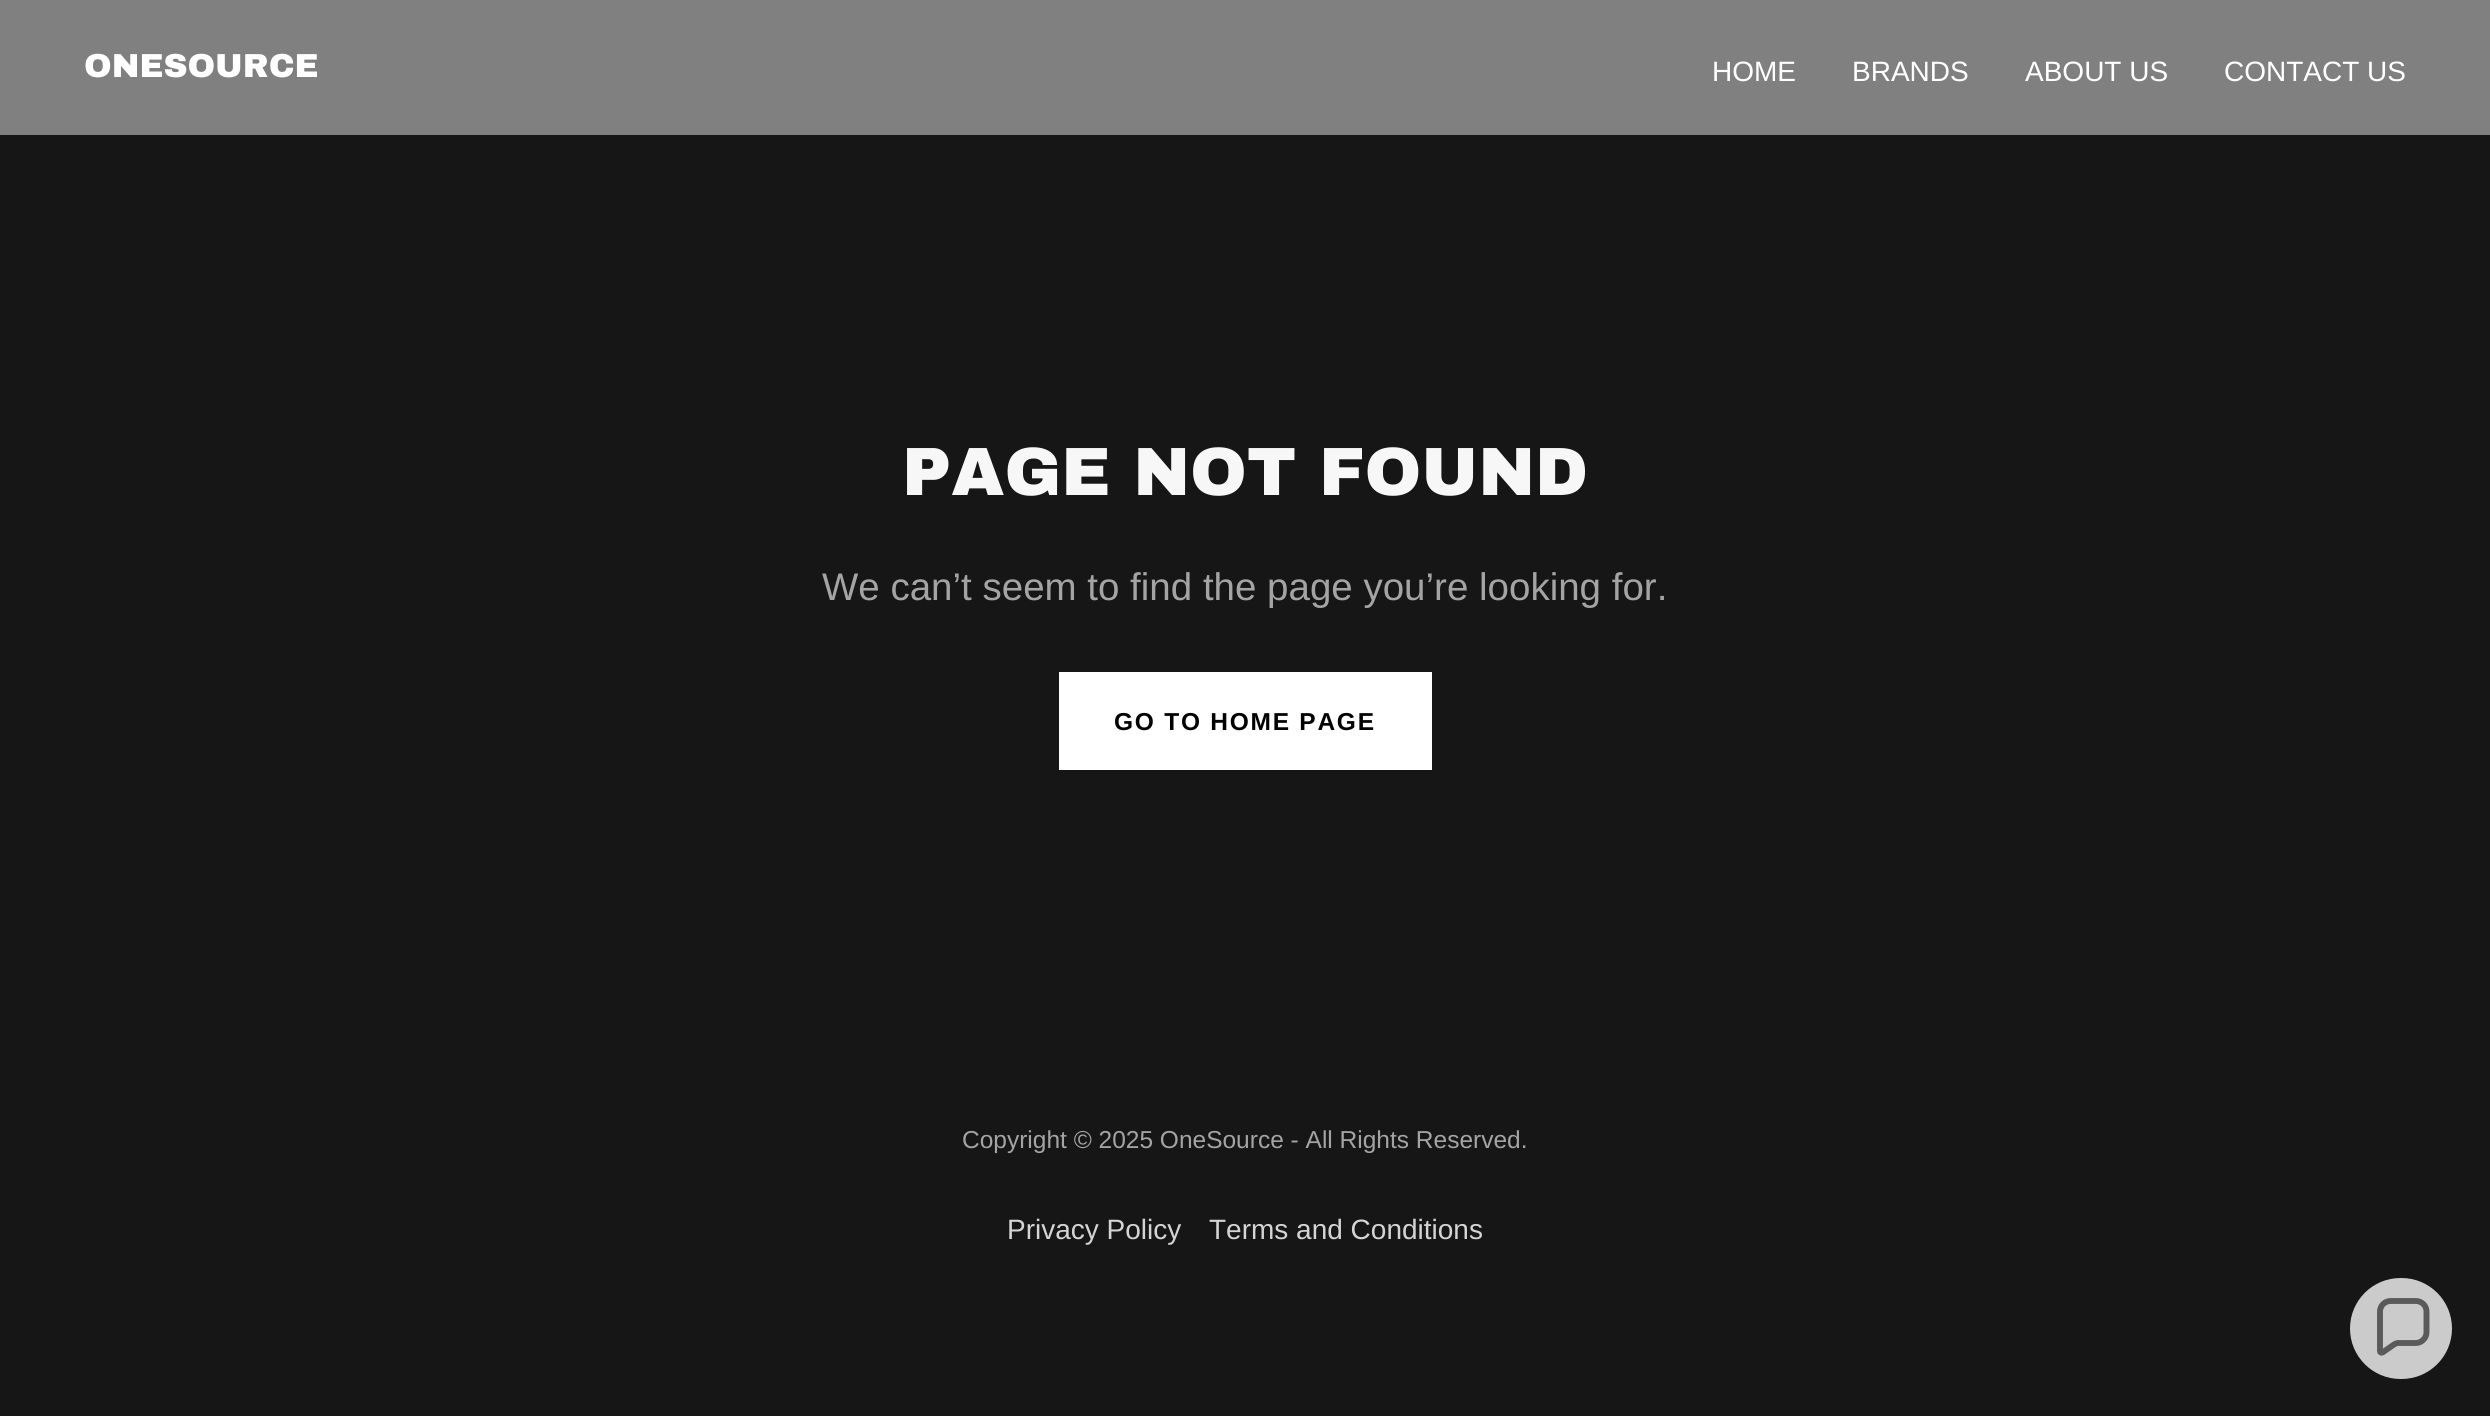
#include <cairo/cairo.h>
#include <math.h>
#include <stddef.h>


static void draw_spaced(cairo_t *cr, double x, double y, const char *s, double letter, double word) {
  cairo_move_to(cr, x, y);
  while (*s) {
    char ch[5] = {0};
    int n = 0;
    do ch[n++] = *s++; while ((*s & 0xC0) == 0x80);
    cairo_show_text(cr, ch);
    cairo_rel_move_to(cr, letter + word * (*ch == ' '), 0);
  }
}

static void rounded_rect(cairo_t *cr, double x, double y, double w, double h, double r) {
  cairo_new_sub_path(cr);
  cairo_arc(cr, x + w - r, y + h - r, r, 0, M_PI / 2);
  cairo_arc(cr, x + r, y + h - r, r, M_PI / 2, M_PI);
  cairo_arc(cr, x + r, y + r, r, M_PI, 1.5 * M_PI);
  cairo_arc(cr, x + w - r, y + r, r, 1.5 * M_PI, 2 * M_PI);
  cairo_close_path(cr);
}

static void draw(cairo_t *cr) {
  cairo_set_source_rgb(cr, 22 / 255.0, 22 / 255.0, 22 / 255.0);
  cairo_paint(cr);
  cairo_set_source_rgb(cr, 128 / 255.0, 128 / 255.0, 128 / 255.0);
  cairo_rectangle(cr, 0, 0, 2490, 135);
  cairo_fill(cr);
  cairo_set_source_rgb(cr, 1, 1, 1);
  cairo_rectangle(cr, 1059, 672, 373, 98);
  cairo_fill(cr);
  cairo_set_source_rgb(cr, 203 / 255.0, 203 / 255.0, 203 / 255.0);
  rounded_rect(cr, 2350, 1278, 102, 101, 50.5);
  cairo_fill(cr);
  cairo_new_path(cr);
  cairo_move_to(cr, 2416, 1301);
  cairo_line_to(cr, 2390.5, 1301);
  cairo_curve_to(cr, 2385, 1301, 2380, 1305.5, 2380, 1311.5);
  cairo_line_to(cr, 2380, 1351.5);
  cairo_curve_to(cr, 2380, 1352.5, 2381.5, 1353, 2382.5, 1352.5);
  cairo_line_to(cr, 2394, 1344.5);
  cairo_curve_to(cr, 2395.5, 1343.5, 2397, 1343, 2398.5, 1343);
  cairo_line_to(cr, 2416, 1343);
  cairo_curve_to(cr, 2421.5, 1343, 2426.5, 1338, 2426.5, 1332.5);
  cairo_line_to(cr, 2426.5, 1311.5);
  cairo_curve_to(cr, 2426.5, 1305.5, 2421.5, 1301, 2416, 1301);
  cairo_close_path(cr);
  cairo_set_source_rgb(cr, 90 / 255.0, 90 / 255.0, 90 / 255.0);
  cairo_set_line_width(cr, 5.9);
  cairo_stroke(cr);
  cairo_select_font_face(cr, "Archivo Black Black", CAIRO_FONT_SLANT_NORMAL, CAIRO_FONT_WEIGHT_NORMAL);
  cairo_set_font_size(cr, 33.25);
  cairo_set_source_rgb(cr, 1, 1, 1);
  cairo_move_to(cr, 84, 77);
  cairo_show_text(cr, "ONESOURCE");
  cairo_select_font_face(cr, "Liberation Sans", CAIRO_FONT_SLANT_NORMAL, CAIRO_FONT_WEIGHT_NORMAL);
  cairo_set_font_size(cr, 28);
  cairo_move_to(cr, 1712, 81);
  cairo_show_text(cr, "HOME");
  cairo_move_to(cr, 1852, 81);
  cairo_show_text(cr, "BRANDS");
  cairo_move_to(cr, 2025, 81);
  cairo_show_text(cr, "ABOUT US");
  cairo_move_to(cr, 2224, 81);
  cairo_show_text(cr, "CONTACT US");
  cairo_select_font_face(cr, "Archivo Black Black", CAIRO_FONT_SLANT_NORMAL, CAIRO_FONT_WEIGHT_NORMAL);
  cairo_set_font_size(cr, 68.25);
  cairo_set_source_rgb(cr, 247 / 255.0, 247 / 255.0, 247 / 255.0);
  cairo_move_to(cr, 902, 495);
  cairo_show_text(cr, "PAGE NOT FOUND");
  cairo_select_font_face(cr, "Liberation Sans", CAIRO_FONT_SLANT_NORMAL, CAIRO_FONT_WEIGHT_NORMAL);
  cairo_set_font_size(cr, 38.5);
  cairo_set_source_rgb(cr, 164 / 255.0, 164 / 255.0, 164 / 255.0);
  cairo_move_to(cr, 822, 600);
  cairo_show_text(cr, "We can’t seem to find the page you’re looking for.");
  cairo_select_font_face(cr, "Liberation Sans", CAIRO_FONT_SLANT_NORMAL, CAIRO_FONT_WEIGHT_BOLD);
  cairo_set_font_size(cr, 24.5);
  cairo_set_source_rgb(cr, 0, 0, 0);
  draw_spaced(cr, 1114, 730, "GO TO HOME PAGE", 1.75, 0);
  cairo_select_font_face(cr, "Liberation Sans", CAIRO_FONT_SLANT_NORMAL, CAIRO_FONT_WEIGHT_NORMAL);
  cairo_set_source_rgb(cr, 164 / 255.0, 164 / 255.0, 164 / 255.0);
  cairo_move_to(cr, 962, 1148);
  cairo_show_text(cr, "Copyright © 2025 OneSource - All Rights Reserved.");
  cairo_set_font_size(cr, 28);
  cairo_set_source_rgb(cr, 212 / 255.0, 212 / 255.0, 212 / 255.0);
  cairo_move_to(cr, 1007, 1239);
  cairo_show_text(cr, "Privacy Policy");
  cairo_move_to(cr, 1209, 1239);
  cairo_show_text(cr, "Terms and Conditions");
}

int main(void) {
  cairo_surface_t *surface = cairo_image_surface_create(CAIRO_FORMAT_RGB24, 2490, 1416);
  cairo_t *cr = cairo_create(surface);
  cairo_font_options_t *options = cairo_font_options_create();
  cairo_font_options_set_hint_metrics(options, CAIRO_HINT_METRICS_OFF);
  cairo_font_options_set_hint_style(options, CAIRO_HINT_STYLE_NONE);
  cairo_set_font_options(cr, options);
  cairo_set_miter_limit(cr, 4);
  draw(cr);
  cairo_surface_write_to_png(surface, "out.png");
  cairo_font_options_destroy(options);
  cairo_destroy(cr);
  cairo_surface_destroy(surface);
  return 0;
}
